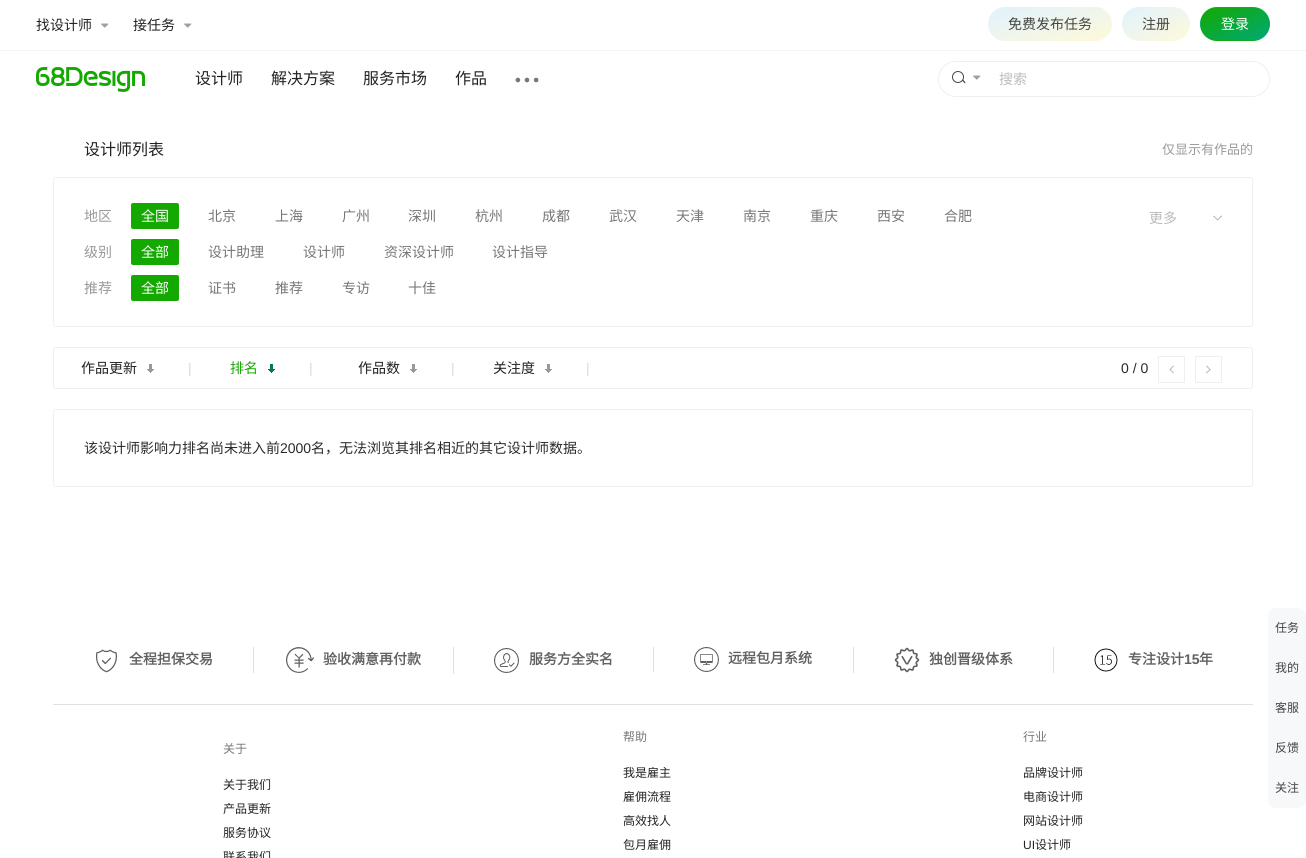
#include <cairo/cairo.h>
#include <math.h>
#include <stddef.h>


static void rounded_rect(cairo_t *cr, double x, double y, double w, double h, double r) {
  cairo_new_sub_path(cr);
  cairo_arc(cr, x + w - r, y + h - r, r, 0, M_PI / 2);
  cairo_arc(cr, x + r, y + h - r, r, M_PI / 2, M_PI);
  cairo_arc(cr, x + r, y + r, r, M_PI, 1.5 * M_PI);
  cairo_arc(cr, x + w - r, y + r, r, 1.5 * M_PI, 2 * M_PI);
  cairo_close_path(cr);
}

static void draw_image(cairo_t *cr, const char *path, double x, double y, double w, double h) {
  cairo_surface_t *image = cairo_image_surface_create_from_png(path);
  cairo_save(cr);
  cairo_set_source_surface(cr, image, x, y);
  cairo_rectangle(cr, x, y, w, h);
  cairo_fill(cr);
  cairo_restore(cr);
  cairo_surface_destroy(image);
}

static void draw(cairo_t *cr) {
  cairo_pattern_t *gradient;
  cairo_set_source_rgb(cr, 1, 1, 1);
  cairo_paint(cr);
  cairo_set_source_rgb(cr, 243 / 255.0, 243 / 255.0, 243 / 255.0);
  cairo_rectangle(cr, 0, 50, 1306, 1);
  cairo_fill(cr);
  draw_image(cr, "images/1.png", 101, 23, 8, 5);
  draw_image(cr, "images/1.png", 184, 23, 8, 5);
  gradient = cairo_pattern_create_linear(1041, -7.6, 1059, 56);
  cairo_pattern_add_color_stop_rgba(gradient, 0, 224 / 255.0, 242 / 255.0, 1, 1);
  cairo_pattern_add_color_stop_rgba(gradient, 1, 1, 249 / 255.0, 217 / 255.0, 1);
  cairo_set_source(cr, gradient);
  cairo_pattern_destroy(gradient);
  rounded_rect(cr, 988, 7, 124, 34, 17);
  cairo_fill(cr);
  gradient = cairo_pattern_create_linear(1142, -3.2, 1170, 51);
  cairo_pattern_add_color_stop_rgba(gradient, 0, 224 / 255.0, 242 / 255.0, 1, 1);
  cairo_pattern_add_color_stop_rgba(gradient, 1, 1, 249 / 255.0, 217 / 255.0, 1);
  cairo_set_source(cr, gradient);
  cairo_pattern_destroy(gradient);
  rounded_rect(cr, 1122, 7, 68, 34, 17);
  cairo_fill(cr);
  cairo_save(cr);
  rounded_rect(cr, 1200, 7, 70, 34, 17);
  cairo_clip(cr);
  gradient = cairo_pattern_create_linear(1223, -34, 1247, 18);
  cairo_pattern_add_color_stop_rgba(gradient, 0, 20 / 255.0, 169 / 255.0, 0, 1);
  cairo_pattern_add_color_stop_rgba(gradient, 1, 0, 169 / 255.0, 116 / 255.0, 1);
  cairo_set_source(cr, gradient);
  cairo_pattern_destroy(gradient);
  cairo_rectangle(cr, 1211, 7, 48, 1);
  cairo_fill(cr);
  gradient = cairo_pattern_create_linear(1155, -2.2, 1179, 50);
  cairo_pattern_add_color_stop_rgba(gradient, 0, 20 / 255.0, 169 / 255.0, 0, 1);
  cairo_pattern_add_color_stop_rgba(gradient, 1, 0, 169 / 255.0, 116 / 255.0, 1);
  cairo_set_source(cr, gradient);
  cairo_pattern_destroy(gradient);
  cairo_rectangle(cr, 1200, 18, 1, 12);
  cairo_fill(cr);
  gradient = cairo_pattern_create_linear(1223, -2.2, 1247, 50);
  cairo_pattern_add_color_stop_rgba(gradient, 0, 20 / 255.0, 169 / 255.0, 0, 1);
  cairo_pattern_add_color_stop_rgba(gradient, 1, 0, 169 / 255.0, 116 / 255.0, 1);
  cairo_set_source(cr, gradient);
  cairo_pattern_destroy(gradient);
  cairo_rectangle(cr, 1201, 8, 68, 32);
  cairo_fill(cr);
  gradient = cairo_pattern_create_linear(1291, -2.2, 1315, 50);
  cairo_pattern_add_color_stop_rgba(gradient, 0, 20 / 255.0, 169 / 255.0, 0, 1);
  cairo_pattern_add_color_stop_rgba(gradient, 1, 0, 169 / 255.0, 116 / 255.0, 1);
  cairo_set_source(cr, gradient);
  cairo_pattern_destroy(gradient);
  cairo_rectangle(cr, 1269, 18, 1, 12);
  cairo_fill(cr);
  gradient = cairo_pattern_create_linear(1223, 30, 1247, 82);
  cairo_pattern_add_color_stop_rgba(gradient, 0, 20 / 255.0, 169 / 255.0, 0, 1);
  cairo_pattern_add_color_stop_rgba(gradient, 1, 0, 169 / 255.0, 116 / 255.0, 1);
  cairo_set_source(cr, gradient);
  cairo_pattern_destroy(gradient);
  cairo_rectangle(cr, 1211, 40, 48, 1);
  cairo_fill(cr);
  cairo_restore(cr);
  draw_image(cr, "images/2.png", 36, 67, 109, 25);
  draw_image(cr, "images/3.png", 515, 77, 24, 6);
  rounded_rect(cr, 938.5, 61.5, 331, 35, 17.5);
  cairo_set_source_rgb(cr, 239 / 255.0, 239 / 255.0, 239 / 255.0);
  cairo_set_line_width(cr, 1);
  cairo_stroke(cr);
  cairo_arc(cr, 958, 77, 5.5, 0, 2 * M_PI);
  cairo_set_source_rgb(cr, 68 / 255.0, 68 / 255.0, 68 / 255.0);
  cairo_stroke(cr);
  cairo_new_path(cr);
  cairo_move_to(cr, 963, 79.5);
  cairo_line_to(cr, 965.5, 82.5);
  cairo_line_to(cr, 965, 83.5);
  cairo_line_to(cr, 962, 80.5);
  cairo_close_path(cr);
  cairo_fill(cr);
  draw_image(cr, "images/1.png", 973, 75, 8, 5);
  rounded_rect(cr, 53.5, 177.5, 1199, 149, 2.5);
  cairo_set_source_rgb(cr, 239 / 255.0, 239 / 255.0, 239 / 255.0);
  cairo_stroke(cr);
  cairo_set_source_rgb(cr, 20 / 255.0, 169 / 255.0, 0);
  rounded_rect(cr, 131, 203, 48, 26, 2);
  cairo_fill(cr);
  draw_image(cr, "images/4.png", 1213, 215, 9, 6);
  rounded_rect(cr, 131, 239, 48, 26, 2);
  cairo_fill(cr);
  rounded_rect(cr, 131, 275, 48, 26, 2);
  cairo_fill(cr);
  rounded_rect(cr, 53.5, 347.5, 1199, 41, 2.5);
  cairo_set_source_rgb(cr, 239 / 255.0, 239 / 255.0, 239 / 255.0);
  cairo_stroke(cr);
  draw_image(cr, "images/5.png", 147, 364, 7, 9);
  draw_image(cr, "images/6.png", 268, 364, 7, 9);
  draw_image(cr, "images/5.png", 410, 364, 7, 9);
  draw_image(cr, "images/5.png", 545, 364, 7, 9);
  cairo_rectangle(cr, 1158.5, 356.5, 26, 26);
  cairo_stroke(cr);
  draw_image(cr, "images/7.png", 1169, 365, 5, 9);
  cairo_rectangle(cr, 1195.5, 356.5, 26, 26);
  cairo_stroke(cr);
  draw_image(cr, "images/8.png", 1206, 365, 5, 9);
  rounded_rect(cr, 53.5, 409.5, 1199, 77, 2.5);
  cairo_stroke(cr);
  cairo_set_source_rgb(cr, 224 / 255.0, 224 / 255.0, 224 / 255.0);
  cairo_rectangle(cr, 53, 704, 1200, 1);
  cairo_fill(cr);
  draw_image(cr, "images/9.png", 96, 649, 21, 24);
  cairo_rectangle(cr, 253, 647, 1, 26);
  cairo_fill(cr);
  draw_image(cr, "images/10.png", 286, 647, 28, 26);
  cairo_rectangle(cr, 453, 647, 1, 27);
  cairo_fill(cr);
  draw_image(cr, "images/11.png", 494, 648, 25, 25);
  cairo_rectangle(cr, 653, 647, 1, 25);
  cairo_fill(cr);
  draw_image(cr, "images/12.png", 694, 647, 25, 25);
  cairo_rectangle(cr, 853, 647, 1, 26);
  cairo_fill(cr);
  draw_image(cr, "images/13.png", 894, 647, 26, 26);
  cairo_rectangle(cr, 1053, 647, 1, 26);
  cairo_fill(cr);
  draw_image(cr, "images/14.png", 1094, 648, 24, 24);
  cairo_set_source_rgb(cr, 247 / 255.0, 248 / 255.0, 249 / 255.0);
  cairo_new_path(cr);
  cairo_move_to(cr, 1276, 608);
  cairo_line_to(cr, 1298, 608);
  cairo_curve_to(cr, 1302.5, 608, 1306, 611.5, 1306, 616);
  cairo_line_to(cr, 1306, 648);
  cairo_line_to(cr, 1268, 648);
  cairo_line_to(cr, 1268, 616);
  cairo_curve_to(cr, 1268, 611.5, 1271.5, 608, 1276, 608);
  cairo_close_path(cr);
  cairo_fill(cr);
  cairo_rectangle(cr, 1268, 648, 38, 120);
  cairo_fill(cr);
  cairo_new_path(cr);
  cairo_move_to(cr, 1268, 768);
  cairo_line_to(cr, 1306, 768);
  cairo_line_to(cr, 1306, 800);
  cairo_curve_to(cr, 1306, 804.5, 1302.5, 808, 1298, 808);
  cairo_line_to(cr, 1276, 808);
  cairo_curve_to(cr, 1271.5, 808, 1268, 804.5, 1268, 800);
  cairo_close_path(cr);
  cairo_fill(cr);
  cairo_select_font_face(cr, "Noto Sans CJK SC", CAIRO_FONT_SLANT_NORMAL, CAIRO_FONT_WEIGHT_NORMAL);
  cairo_set_font_size(cr, 14);
  cairo_set_source_rgb(cr, 34 / 255.0, 34 / 255.0, 34 / 255.0);
  cairo_move_to(cr, 36, 30);
  cairo_show_text(cr, "找设计师");
  cairo_move_to(cr, 133, 30);
  cairo_show_text(cr, "接任务");
  cairo_set_source_rgb(cr, 68 / 255.0, 68 / 255.0, 68 / 255.0);
  cairo_move_to(cr, 1008, 29);
  cairo_show_text(cr, "免费发布任务");
  cairo_move_to(cr, 1142, 29);
  cairo_show_text(cr, "注册");
  cairo_set_source_rgb(cr, 1, 1, 1);
  cairo_move_to(cr, 1221, 29);
  cairo_show_text(cr, "登录");
  cairo_set_font_size(cr, 16);
  cairo_set_source_rgb(cr, 34 / 255.0, 34 / 255.0, 34 / 255.0);
  cairo_move_to(cr, 195, 84);
  cairo_show_text(cr, "设计师");
  cairo_move_to(cr, 271, 84);
  cairo_show_text(cr, "解决方案");
  cairo_move_to(cr, 363, 84);
  cairo_show_text(cr, "服务市场");
  cairo_move_to(cr, 455, 84);
  cairo_show_text(cr, "作品");
  cairo_set_font_size(cr, 14);
  cairo_set_source_rgb(cr, 187 / 255.0, 187 / 255.0, 187 / 255.0);
  cairo_move_to(cr, 999, 84);
  cairo_show_text(cr, "搜索");
  cairo_set_font_size(cr, 16);
  cairo_set_source_rgb(cr, 34 / 255.0, 34 / 255.0, 34 / 255.0);
  cairo_move_to(cr, 84, 155);
  cairo_show_text(cr, "设计师列表");
  cairo_set_font_size(cr, 13);
  cairo_set_source_rgb(cr, 153 / 255.0, 153 / 255.0, 153 / 255.0);
  cairo_move_to(cr, 1162, 154);
  cairo_show_text(cr, "仅显示有作品的");
  cairo_set_font_size(cr, 14);
  cairo_move_to(cr, 84, 221);
  cairo_show_text(cr, "地区");
  cairo_set_source_rgb(cr, 1, 1, 1);
  cairo_move_to(cr, 141, 221);
  cairo_show_text(cr, "全国");
  cairo_set_source_rgb(cr, 119 / 255.0, 119 / 255.0, 119 / 255.0);
  cairo_move_to(cr, 208, 221);
  cairo_show_text(cr, "北京");
  cairo_move_to(cr, 275, 221);
  cairo_show_text(cr, "上海");
  cairo_move_to(cr, 342, 221);
  cairo_show_text(cr, "广州");
  cairo_move_to(cr, 408, 221);
  cairo_show_text(cr, "深圳");
  cairo_move_to(cr, 475, 221);
  cairo_show_text(cr, "杭州");
  cairo_move_to(cr, 542, 221);
  cairo_show_text(cr, "成都");
  cairo_move_to(cr, 609, 221);
  cairo_show_text(cr, "武汉");
  cairo_move_to(cr, 676, 221);
  cairo_show_text(cr, "天津");
  cairo_move_to(cr, 743, 221);
  cairo_show_text(cr, "南京");
  cairo_move_to(cr, 810, 221);
  cairo_show_text(cr, "重庆");
  cairo_move_to(cr, 877, 221);
  cairo_show_text(cr, "西安");
  cairo_move_to(cr, 944, 221);
  cairo_show_text(cr, "合肥");
  cairo_set_source_rgb(cr, 187 / 255.0, 187 / 255.0, 187 / 255.0);
  cairo_move_to(cr, 1149, 223);
  cairo_show_text(cr, "更多");
  cairo_set_source_rgb(cr, 153 / 255.0, 153 / 255.0, 153 / 255.0);
  cairo_move_to(cr, 84, 257);
  cairo_show_text(cr, "级别");
  cairo_set_source_rgb(cr, 1, 1, 1);
  cairo_move_to(cr, 141, 257);
  cairo_show_text(cr, "全部");
  cairo_set_source_rgb(cr, 119 / 255.0, 119 / 255.0, 119 / 255.0);
  cairo_move_to(cr, 208, 257);
  cairo_show_text(cr, "设计助理");
  cairo_move_to(cr, 303, 257);
  cairo_show_text(cr, "设计师");
  cairo_move_to(cr, 384, 257);
  cairo_show_text(cr, "资深设计师");
  cairo_move_to(cr, 492, 257);
  cairo_show_text(cr, "设计指导");
  cairo_set_source_rgb(cr, 153 / 255.0, 153 / 255.0, 153 / 255.0);
  cairo_move_to(cr, 84, 293);
  cairo_show_text(cr, "推荐");
  cairo_set_source_rgb(cr, 1, 1, 1);
  cairo_move_to(cr, 141, 293);
  cairo_show_text(cr, "全部");
  cairo_set_source_rgb(cr, 119 / 255.0, 119 / 255.0, 119 / 255.0);
  cairo_move_to(cr, 208, 293);
  cairo_show_text(cr, "证书");
  cairo_move_to(cr, 275, 293);
  cairo_show_text(cr, "推荐");
  cairo_move_to(cr, 342, 293);
  cairo_show_text(cr, "专访");
  cairo_move_to(cr, 408, 293);
  cairo_show_text(cr, "十佳");
  cairo_set_source_rgb(cr, 34 / 255.0, 34 / 255.0, 34 / 255.0);
  cairo_move_to(cr, 81, 373);
  cairo_show_text(cr, "作品更新");
  cairo_select_font_face(cr, "Liberation Sans", CAIRO_FONT_SLANT_NORMAL, CAIRO_FONT_WEIGHT_NORMAL);
  cairo_set_source_rgb(cr, 217 / 255.0, 217 / 255.0, 217 / 255.0);
  cairo_move_to(cr, 188, 373);
  cairo_show_text(cr, "|");
  cairo_select_font_face(cr, "Noto Sans CJK SC", CAIRO_FONT_SLANT_NORMAL, CAIRO_FONT_WEIGHT_NORMAL);
  cairo_set_source_rgb(cr, 20 / 255.0, 169 / 255.0, 0);
  cairo_move_to(cr, 230, 373);
  cairo_show_text(cr, "排名");
  cairo_select_font_face(cr, "Liberation Sans", CAIRO_FONT_SLANT_NORMAL, CAIRO_FONT_WEIGHT_NORMAL);
  cairo_set_source_rgb(cr, 217 / 255.0, 217 / 255.0, 217 / 255.0);
  cairo_move_to(cr, 309, 373);
  cairo_show_text(cr, "|");
  cairo_select_font_face(cr, "Noto Sans CJK SC", CAIRO_FONT_SLANT_NORMAL, CAIRO_FONT_WEIGHT_NORMAL);
  cairo_set_source_rgb(cr, 34 / 255.0, 34 / 255.0, 34 / 255.0);
  cairo_move_to(cr, 358, 373);
  cairo_show_text(cr, "作品数");
  cairo_select_font_face(cr, "Liberation Sans", CAIRO_FONT_SLANT_NORMAL, CAIRO_FONT_WEIGHT_NORMAL);
  cairo_set_source_rgb(cr, 217 / 255.0, 217 / 255.0, 217 / 255.0);
  cairo_move_to(cr, 451, 373);
  cairo_show_text(cr, "|");
  cairo_select_font_face(cr, "Noto Sans CJK SC", CAIRO_FONT_SLANT_NORMAL, CAIRO_FONT_WEIGHT_NORMAL);
  cairo_set_source_rgb(cr, 34 / 255.0, 34 / 255.0, 34 / 255.0);
  cairo_move_to(cr, 493, 373);
  cairo_show_text(cr, "关注度");
  cairo_select_font_face(cr, "Liberation Sans", CAIRO_FONT_SLANT_NORMAL, CAIRO_FONT_WEIGHT_NORMAL);
  cairo_set_source_rgb(cr, 217 / 255.0, 217 / 255.0, 217 / 255.0);
  cairo_move_to(cr, 586, 373);
  cairo_show_text(cr, "|");
  cairo_set_source_rgb(cr, 43 / 255.0, 43 / 255.0, 43 / 255.0);
  cairo_move_to(cr, 1121, 373);
  cairo_show_text(cr, "0 / 0");
  cairo_select_font_face(cr, "Noto Sans CJK SC", CAIRO_FONT_SLANT_NORMAL, CAIRO_FONT_WEIGHT_NORMAL);
  cairo_move_to(cr, 84, 453);
  cairo_show_text(cr, "该设计师影响力排名尚未进入前");
  cairo_select_font_face(cr, "Liberation Sans", CAIRO_FONT_SLANT_NORMAL, CAIRO_FONT_WEIGHT_NORMAL);
  cairo_move_to(cr, 280, 453);
  cairo_show_text(cr, "2000");
  cairo_select_font_face(cr, "Noto Sans CJK SC", CAIRO_FONT_SLANT_NORMAL, CAIRO_FONT_WEIGHT_NORMAL);
  cairo_move_to(cr, 311, 453);
  cairo_show_text(cr, "名，无法浏览其排名相近的其它设计师数据。");
  cairo_select_font_face(cr, "Noto Sans CJK SC", CAIRO_FONT_SLANT_NORMAL, CAIRO_FONT_WEIGHT_BOLD);
  cairo_set_source_rgb(cr, 97 / 255.0, 97 / 255.0, 97 / 255.0);
  cairo_move_to(cr, 129, 664);
  cairo_show_text(cr, "全程担保交易");
  cairo_move_to(cr, 323, 664);
  cairo_show_text(cr, "验收满意再付款");
  cairo_move_to(cr, 529, 664);
  cairo_show_text(cr, "服务方全实名");
  cairo_move_to(cr, 728, 663);
  cairo_show_text(cr, "远程包月系统");
  cairo_move_to(cr, 929, 664);
  cairo_show_text(cr, "独创晋级体系");
  cairo_move_to(cr, 1128, 664);
  cairo_show_text(cr, "专注设计");
  cairo_select_font_face(cr, "Liberation Sans", CAIRO_FONT_SLANT_NORMAL, CAIRO_FONT_WEIGHT_BOLD);
  cairo_move_to(cr, 1184, 664);
  cairo_show_text(cr, "15");
  cairo_select_font_face(cr, "Noto Sans CJK SC", CAIRO_FONT_SLANT_NORMAL, CAIRO_FONT_WEIGHT_BOLD);
  cairo_move_to(cr, 1199, 664);
  cairo_show_text(cr, "年");
  cairo_select_font_face(cr, "Noto Sans CJK SC", CAIRO_FONT_SLANT_NORMAL, CAIRO_FONT_WEIGHT_NORMAL);
  cairo_set_font_size(cr, 12);
  cairo_set_source_rgb(cr, 119 / 255.0, 119 / 255.0, 119 / 255.0);
  cairo_move_to(cr, 223, 753);
  cairo_show_text(cr, "关于");
  cairo_set_source_rgb(cr, 34 / 255.0, 34 / 255.0, 34 / 255.0);
  cairo_move_to(cr, 223, 789);
  cairo_show_text(cr, "关于我们");
  cairo_move_to(cr, 223, 813);
  cairo_show_text(cr, "产品更新");
  cairo_move_to(cr, 223, 837);
  cairo_show_text(cr, "服务协议");
  cairo_move_to(cr, 223, 861);
  cairo_show_text(cr, "联系我们");
  cairo_set_source_rgb(cr, 119 / 255.0, 119 / 255.0, 119 / 255.0);
  cairo_move_to(cr, 623, 741);
  cairo_show_text(cr, "帮助");
  cairo_set_source_rgb(cr, 34 / 255.0, 34 / 255.0, 34 / 255.0);
  cairo_move_to(cr, 623, 777);
  cairo_show_text(cr, "我是雇主");
  cairo_move_to(cr, 623, 801);
  cairo_show_text(cr, "雇佣流程");
  cairo_move_to(cr, 623, 825);
  cairo_show_text(cr, "高效找人");
  cairo_move_to(cr, 623, 849);
  cairo_show_text(cr, "包月雇佣");
  cairo_set_source_rgb(cr, 119 / 255.0, 119 / 255.0, 119 / 255.0);
  cairo_move_to(cr, 1023, 741);
  cairo_show_text(cr, "行业");
  cairo_set_source_rgb(cr, 34 / 255.0, 34 / 255.0, 34 / 255.0);
  cairo_move_to(cr, 1023, 777);
  cairo_show_text(cr, "品牌设计师");
  cairo_move_to(cr, 1023, 801);
  cairo_show_text(cr, "电商设计师");
  cairo_move_to(cr, 1023, 825);
  cairo_show_text(cr, "网站设计师");
  cairo_select_font_face(cr, "Liberation Sans", CAIRO_FONT_SLANT_NORMAL, CAIRO_FONT_WEIGHT_NORMAL);
  cairo_move_to(cr, 1023, 849);
  cairo_show_text(cr, "UI");
  cairo_select_font_face(cr, "Noto Sans CJK SC", CAIRO_FONT_SLANT_NORMAL, CAIRO_FONT_WEIGHT_NORMAL);
  cairo_move_to(cr, 1035, 849);
  cairo_show_text(cr, "设计师");
  cairo_set_source_rgb(cr, 68 / 255.0, 68 / 255.0, 68 / 255.0);
  cairo_move_to(cr, 1275, 632);
  cairo_show_text(cr, "任务");
  cairo_move_to(cr, 1275, 672);
  cairo_show_text(cr, "我的");
  cairo_move_to(cr, 1275, 712);
  cairo_show_text(cr, "客服");
  cairo_move_to(cr, 1275, 752);
  cairo_show_text(cr, "反馈");
  cairo_move_to(cr, 1275, 792);
  cairo_show_text(cr, "关注");
}

int main(void) {
  cairo_surface_t *surface = cairo_image_surface_create(CAIRO_FORMAT_RGB24, 1306, 858);
  cairo_t *cr = cairo_create(surface);
  cairo_font_options_t *options = cairo_font_options_create();
  cairo_font_options_set_hint_metrics(options, CAIRO_HINT_METRICS_OFF);
  cairo_font_options_set_hint_style(options, CAIRO_HINT_STYLE_NONE);
  cairo_set_font_options(cr, options);
  cairo_set_miter_limit(cr, 4);
  draw(cr);
  cairo_surface_write_to_png(surface, "out.png");
  cairo_font_options_destroy(options);
  cairo_destroy(cr);
  cairo_surface_destroy(surface);
  return 0;
}
